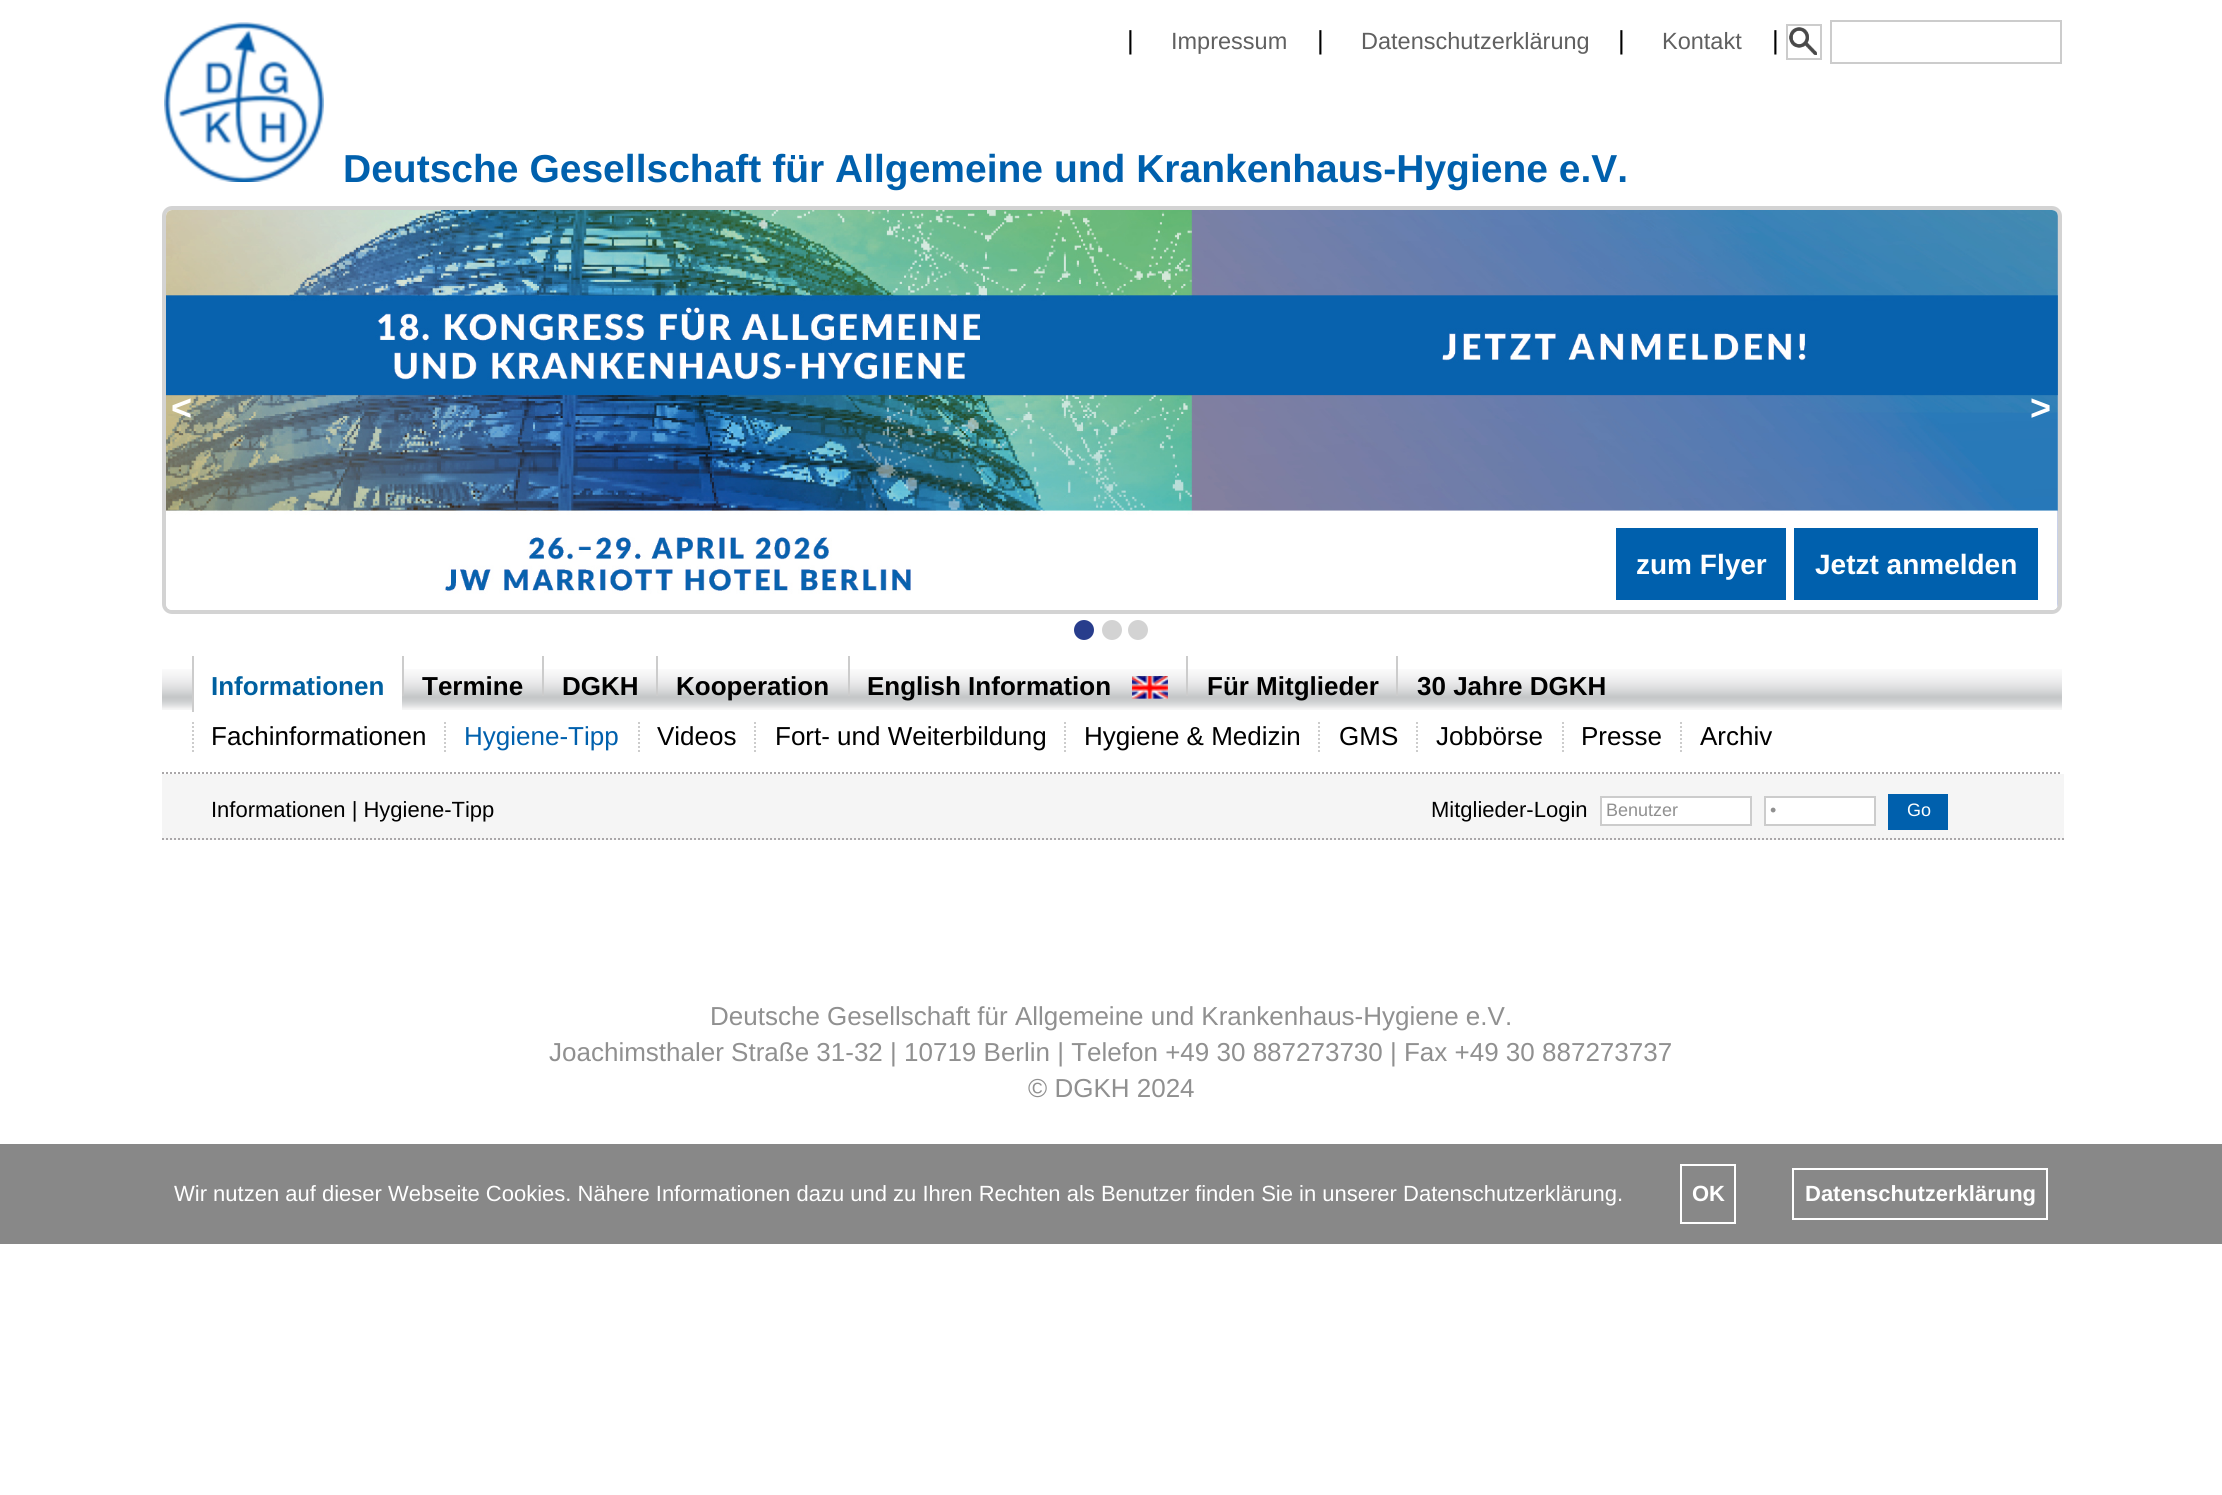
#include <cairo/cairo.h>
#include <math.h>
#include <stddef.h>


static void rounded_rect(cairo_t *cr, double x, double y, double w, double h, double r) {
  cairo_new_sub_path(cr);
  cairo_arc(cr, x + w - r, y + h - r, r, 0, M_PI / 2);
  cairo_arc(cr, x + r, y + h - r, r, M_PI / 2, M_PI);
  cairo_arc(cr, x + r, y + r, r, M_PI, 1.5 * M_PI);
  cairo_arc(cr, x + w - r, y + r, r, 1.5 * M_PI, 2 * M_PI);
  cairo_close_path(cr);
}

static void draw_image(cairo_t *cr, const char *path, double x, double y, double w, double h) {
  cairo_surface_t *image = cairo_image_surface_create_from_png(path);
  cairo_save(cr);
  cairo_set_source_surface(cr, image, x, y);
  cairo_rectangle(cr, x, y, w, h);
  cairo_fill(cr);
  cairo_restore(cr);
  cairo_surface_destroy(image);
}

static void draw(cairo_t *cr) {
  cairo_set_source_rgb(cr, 1, 1, 1);
  cairo_paint(cr);
  cairo_rectangle(cr, 1787, 25, 34, 34);
  cairo_set_source_rgb(cr, 204 / 255.0, 204 / 255.0, 204 / 255.0);
  cairo_stroke(cr);
  draw_image(cr, "images/1.png", 1789, 27, 28, 28);
  cairo_rectangle(cr, 1831, 21, 230, 42);
  cairo_stroke(cr);
  draw_image(cr, "images/2.png", 164, 22, 160, 160);
  rounded_rect(cr, 164, 208, 1896, 404, 8);
  cairo_set_source_rgb(cr, 211 / 255.0, 211 / 255.0, 211 / 255.0);
  cairo_set_line_width(cr, 4);
  cairo_stroke(cr);
  draw_image(cr, "images/3.png", 166, 210, 1892, 400);
  cairo_set_source_rgb(cr, 0, 96 / 255.0, 173 / 255.0);
  cairo_rectangle(cr, 1616, 528, 170, 72);
  cairo_fill(cr);
  cairo_rectangle(cr, 1794, 528, 244, 72);
  cairo_fill(cr);
  cairo_set_source_rgb(cr, 40 / 255.0, 61 / 255.0, 140 / 255.0);
  cairo_arc(cr, 1084, 630, 10, 0, 2 * M_PI);
  cairo_fill(cr);
  cairo_set_source_rgb(cr, 211 / 255.0, 211 / 255.0, 211 / 255.0);
  cairo_arc(cr, 1112, 630, 10, 0, 2 * M_PI);
  cairo_fill(cr);
  cairo_arc(cr, 1138, 630, 10, 0, 2 * M_PI);
  cairo_fill(cr);
  draw_image(cr, "images/4.png", 162, 669, 1900, 41);
  cairo_set_source_rgb(cr, 1, 1, 1);
  cairo_rectangle(cr, 194, 669, 208, 41);
  cairo_fill(cr);
  cairo_set_source_rgb(cr, 204 / 255.0, 204 / 255.0, 204 / 255.0);
  cairo_rectangle(cr, 192, 656, 2, 56);
  cairo_fill(cr);
  cairo_rectangle(cr, 402, 656, 2, 40);
  cairo_fill(cr);
  cairo_rectangle(cr, 542, 656, 2, 40);
  cairo_fill(cr);
  cairo_rectangle(cr, 656, 656, 2, 40);
  cairo_fill(cr);
  cairo_rectangle(cr, 848, 656, 2, 40);
  cairo_fill(cr);
  draw_image(cr, "images/5.png", 1132, 676, 36, 23);
  cairo_rectangle(cr, 1186, 656, 2, 40);
  cairo_fill(cr);
  cairo_rectangle(cr, 1396, 656, 2, 40);
  cairo_fill(cr);
  cairo_new_path(cr);
  cairo_move_to(cr, 162, 773);
  cairo_line_to(cr, 2062, 773);
  cairo_set_source_rgb(cr, 170 / 255.0, 167 / 255.0, 169 / 255.0);
  cairo_set_line_width(cr, 2);
  cairo_set_dash(cr, (double[]){2, 2}, 2, 0);
  cairo_stroke(cr);
  cairo_new_path(cr);
  cairo_move_to(cr, 193, 722);
  cairo_line_to(cr, 193, 752);
  cairo_set_source_rgb(cr, 204 / 255.0, 204 / 255.0, 204 / 255.0);
  cairo_stroke(cr);
  cairo_new_path(cr);
  cairo_move_to(cr, 445, 722);
  cairo_line_to(cr, 445, 752);
  cairo_stroke(cr);
  cairo_new_path(cr);
  cairo_move_to(cr, 639, 722);
  cairo_line_to(cr, 639, 752);
  cairo_stroke(cr);
  cairo_new_path(cr);
  cairo_move_to(cr, 755, 722);
  cairo_line_to(cr, 755, 752);
  cairo_stroke(cr);
  cairo_new_path(cr);
  cairo_move_to(cr, 1065, 722);
  cairo_line_to(cr, 1065, 752);
  cairo_stroke(cr);
  cairo_new_path(cr);
  cairo_move_to(cr, 1319, 722);
  cairo_line_to(cr, 1319, 752);
  cairo_stroke(cr);
  cairo_new_path(cr);
  cairo_move_to(cr, 1417, 722);
  cairo_line_to(cr, 1417, 752);
  cairo_stroke(cr);
  cairo_new_path(cr);
  cairo_move_to(cr, 1563, 722);
  cairo_line_to(cr, 1563, 752);
  cairo_stroke(cr);
  cairo_new_path(cr);
  cairo_move_to(cr, 1681, 722);
  cairo_line_to(cr, 1681, 752);
  cairo_stroke(cr);
  cairo_set_source_rgb(cr, 245 / 255.0, 245 / 255.0, 245 / 255.0);
  cairo_rectangle(cr, 162, 774, 1902, 66);
  cairo_fill(cr);
  cairo_new_path(cr);
  cairo_move_to(cr, 162, 839);
  cairo_line_to(cr, 2064, 839);
  cairo_set_source_rgb(cr, 170 / 255.0, 167 / 255.0, 169 / 255.0);
  cairo_stroke(cr);
  cairo_set_source_rgb(cr, 1, 1, 1);
  cairo_rectangle(cr, 1601, 797, 150, 28);
  cairo_fill_preserve(cr);
  cairo_set_source_rgb(cr, 204 / 255.0, 204 / 255.0, 204 / 255.0);
  cairo_set_dash(cr, NULL, 0, 0);
  cairo_stroke(cr);
  cairo_set_source_rgb(cr, 1, 1, 1);
  cairo_rectangle(cr, 1765, 797, 110, 28);
  cairo_fill_preserve(cr);
  cairo_set_source_rgb(cr, 204 / 255.0, 204 / 255.0, 204 / 255.0);
  cairo_stroke(cr);
  cairo_set_source_rgb(cr, 0, 96 / 255.0, 173 / 255.0);
  cairo_rectangle(cr, 1888, 794, 60, 36);
  cairo_fill(cr);
  cairo_set_source_rgb(cr, 136 / 255.0, 136 / 255.0, 136 / 255.0);
  cairo_rectangle(cr, 0, 1144, 2222, 100);
  cairo_fill(cr);
  cairo_rectangle(cr, 1681, 1165, 54, 58);
  cairo_set_source_rgb(cr, 1, 1, 1);
  cairo_stroke(cr);
  cairo_rectangle(cr, 1793, 1169, 254, 50);
  cairo_stroke(cr);
  cairo_select_font_face(cr, "Liberation Sans", CAIRO_FONT_SLANT_NORMAL, CAIRO_FONT_WEIGHT_NORMAL);
  cairo_set_font_size(cr, 26);
  cairo_set_source_rgb(cr, 0, 0, 0);
  cairo_move_to(cr, 1127, 49);
  cairo_show_text(cr, "|");
  cairo_set_font_size(cr, 23.5);
  cairo_set_source_rgb(cr, 96 / 255.0, 96 / 255.0, 96 / 255.0);
  cairo_move_to(cr, 1171, 49);
  cairo_show_text(cr, "Impressum");
  cairo_set_font_size(cr, 26);
  cairo_set_source_rgb(cr, 0, 0, 0);
  cairo_move_to(cr, 1317, 49);
  cairo_show_text(cr, "|");
  cairo_set_font_size(cr, 23.5);
  cairo_set_source_rgb(cr, 96 / 255.0, 96 / 255.0, 96 / 255.0);
  cairo_move_to(cr, 1361, 49);
  cairo_show_text(cr, "Datenschutzerklärung");
  cairo_set_font_size(cr, 26);
  cairo_set_source_rgb(cr, 0, 0, 0);
  cairo_move_to(cr, 1618, 49);
  cairo_show_text(cr, "|");
  cairo_set_font_size(cr, 23.5);
  cairo_set_source_rgb(cr, 96 / 255.0, 96 / 255.0, 96 / 255.0);
  cairo_move_to(cr, 1662, 49);
  cairo_show_text(cr, "Kontakt");
  cairo_set_font_size(cr, 26);
  cairo_set_source_rgb(cr, 0, 0, 0);
  cairo_move_to(cr, 1772, 49);
  cairo_show_text(cr, "|");
  cairo_select_font_face(cr, "Liberation Sans", CAIRO_FONT_SLANT_NORMAL, CAIRO_FONT_WEIGHT_BOLD);
  cairo_set_font_size(cr, 39);
  cairo_set_source_rgb(cr, 0, 96 / 255.0, 173 / 255.0);
  cairo_move_to(cr, 343, 182);
  cairo_show_text(cr, "Deutsche Gesellschaft für Allgemeine und Krankenhaus-Hygiene e.V.");
  cairo_set_font_size(cr, 36);
  cairo_set_source_rgb(cr, 1, 1, 1);
  cairo_move_to(cr, 171, 420);
  cairo_show_text(cr, "<");
  cairo_move_to(cr, 2030, 420);
  cairo_show_text(cr, ">");
  cairo_set_font_size(cr, 28);
  cairo_move_to(cr, 1636, 574);
  cairo_show_text(cr, "zum Flyer");
  cairo_move_to(cr, 1815, 574);
  cairo_show_text(cr, "Jetzt anmelden");
  cairo_set_font_size(cr, 26);
  cairo_set_source_rgb(cr, 0, 96 / 255.0, 160 / 255.0);
  cairo_move_to(cr, 211, 695);
  cairo_show_text(cr, "Informationen");
  cairo_set_source_rgb(cr, 0, 0, 0);
  cairo_move_to(cr, 422, 695);
  cairo_show_text(cr, "Termine");
  cairo_move_to(cr, 562, 695);
  cairo_show_text(cr, "DGKH");
  cairo_move_to(cr, 676, 695);
  cairo_show_text(cr, "Kooperation");
  cairo_move_to(cr, 867, 695);
  cairo_show_text(cr, "English Information");
  cairo_move_to(cr, 1207, 695);
  cairo_show_text(cr, "Für Mitglieder");
  cairo_move_to(cr, 1417, 695);
  cairo_show_text(cr, "30 Jahre DGKH");
  cairo_select_font_face(cr, "Liberation Sans", CAIRO_FONT_SLANT_NORMAL, CAIRO_FONT_WEIGHT_NORMAL);
  cairo_move_to(cr, 211, 745);
  cairo_show_text(cr, "Fachinformationen");
  cairo_set_source_rgb(cr, 0, 96 / 255.0, 173 / 255.0);
  cairo_move_to(cr, 464, 745);
  cairo_show_text(cr, "Hygiene-Tipp");
  cairo_set_source_rgb(cr, 0, 0, 0);
  cairo_move_to(cr, 657, 745);
  cairo_show_text(cr, "Videos");
  cairo_move_to(cr, 775, 745);
  cairo_show_text(cr, "Fort- und Weiterbildung");
  cairo_move_to(cr, 1084, 745);
  cairo_show_text(cr, "Hygiene & Medizin");
  cairo_move_to(cr, 1339, 745);
  cairo_show_text(cr, "GMS");
  cairo_move_to(cr, 1436, 745);
  cairo_show_text(cr, "Jobbörse");
  cairo_move_to(cr, 1581, 745);
  cairo_show_text(cr, "Presse");
  cairo_move_to(cr, 1700, 745);
  cairo_show_text(cr, "Archiv");
  cairo_set_font_size(cr, 22);
  cairo_move_to(cr, 211, 817);
  cairo_show_text(cr, "Informationen | Hygiene-Tipp");
  cairo_move_to(cr, 1431, 817);
  cairo_show_text(cr, "Mitglieder-Login");
  cairo_set_font_size(cr, 18);
  cairo_set_source_rgb(cr, 144 / 255.0, 144 / 255.0, 144 / 255.0);
  cairo_move_to(cr, 1606, 816);
  cairo_show_text(cr, "Benutzer");
  cairo_move_to(cr, 1770, 816);
  cairo_show_text(cr, "•");
  cairo_set_source_rgb(cr, 1, 1, 1);
  cairo_move_to(cr, 1907, 816);
  cairo_show_text(cr, "Go");
  cairo_set_font_size(cr, 26);
  cairo_set_source_rgb(cr, 144 / 255.0, 144 / 255.0, 144 / 255.0);
  cairo_move_to(cr, 710, 1025);
  cairo_show_text(cr, "Deutsche Gesellschaft für Allgemeine und Krankenhaus-Hygiene e.V.");
  cairo_move_to(cr, 549, 1061);
  cairo_show_text(cr, "Joachimsthaler Straße 31-32 | 10719 Berlin | Telefon +49 30 887273730 | Fax +49 30 887273737");
  cairo_move_to(cr, 1028, 1097);
  cairo_show_text(cr, "© DGKH 2024");
  cairo_set_font_size(cr, 22);
  cairo_set_source_rgb(cr, 1, 1, 1);
  cairo_move_to(cr, 174, 1201);
  cairo_show_text(cr, "Wir nutzen auf dieser Webseite Cookies. Nähere Informationen dazu und zu Ihren Rechten als Benutzer finden Sie in unserer Datenschutzerklärung.");
  cairo_select_font_face(cr, "Liberation Sans", CAIRO_FONT_SLANT_NORMAL, CAIRO_FONT_WEIGHT_BOLD);
  cairo_move_to(cr, 1692, 1201);
  cairo_show_text(cr, "OK");
  cairo_move_to(cr, 1805, 1201);
  cairo_show_text(cr, "Datenschutzerklärung");
}

int main(void) {
  cairo_surface_t *surface = cairo_image_surface_create(CAIRO_FORMAT_RGB24, 2222, 1495);
  cairo_t *cr = cairo_create(surface);
  cairo_font_options_t *options = cairo_font_options_create();
  cairo_font_options_set_hint_metrics(options, CAIRO_HINT_METRICS_OFF);
  cairo_font_options_set_hint_style(options, CAIRO_HINT_STYLE_NONE);
  cairo_set_font_options(cr, options);
  cairo_set_miter_limit(cr, 4);
  draw(cr);
  cairo_surface_write_to_png(surface, "out.png");
  cairo_font_options_destroy(options);
  cairo_destroy(cr);
  cairo_surface_destroy(surface);
  return 0;
}
